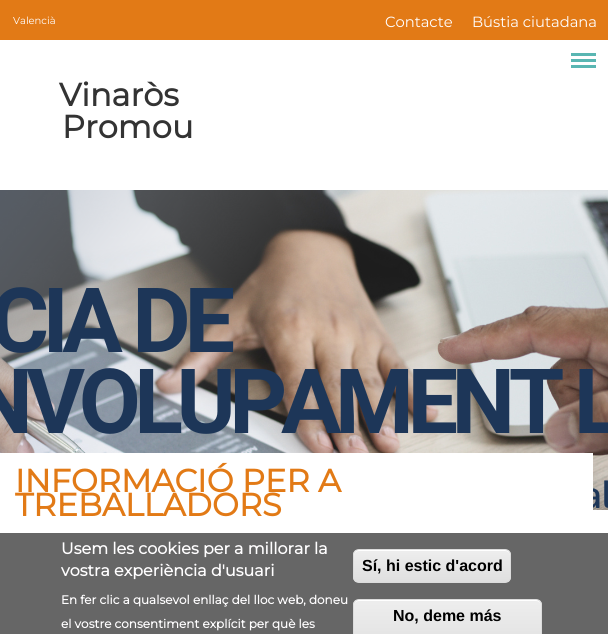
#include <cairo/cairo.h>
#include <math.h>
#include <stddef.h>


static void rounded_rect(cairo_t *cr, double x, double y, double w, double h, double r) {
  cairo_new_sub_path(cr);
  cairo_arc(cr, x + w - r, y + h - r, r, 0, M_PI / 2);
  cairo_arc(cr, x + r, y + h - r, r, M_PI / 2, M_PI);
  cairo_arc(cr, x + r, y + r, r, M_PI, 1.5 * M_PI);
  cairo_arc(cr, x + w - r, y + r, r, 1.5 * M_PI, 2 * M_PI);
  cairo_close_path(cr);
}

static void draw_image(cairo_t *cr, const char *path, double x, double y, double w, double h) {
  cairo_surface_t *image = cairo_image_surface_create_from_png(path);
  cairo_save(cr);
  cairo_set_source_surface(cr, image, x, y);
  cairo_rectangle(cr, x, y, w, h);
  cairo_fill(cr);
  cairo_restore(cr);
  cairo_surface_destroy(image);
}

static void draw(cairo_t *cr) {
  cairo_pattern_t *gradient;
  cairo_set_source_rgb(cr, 1, 1, 1);
  cairo_paint(cr);
  cairo_set_source_rgb(cr, 226 / 255.0, 122 / 255.0, 22 / 255.0);
  cairo_rectangle(cr, 0, 0, 608, 40);
  cairo_fill(cr);
  cairo_set_source_rgb(cr, 89 / 255.0, 182 / 255.0, 178 / 255.0);
  cairo_rectangle(cr, 571, 53, 25, 3);
  cairo_fill(cr);
  cairo_rectangle(cr, 571, 59, 25, 3);
  cairo_fill(cr);
  cairo_rectangle(cr, 571, 65, 25, 3);
  cairo_fill(cr);
  draw_image(cr, "images/1.png", 0, 190, 608, 320);
  cairo_set_source_rgb(cr, 1, 1, 1);
  cairo_rectangle(cr, 0, 453, 593, 57);
  cairo_fill(cr);
  cairo_set_source_rgb(cr, 102 / 255.0, 102 / 255.0, 102 / 255.0);
  cairo_rectangle(cr, 0, 533, 608, 101);
  cairo_fill(cr);
  cairo_save(cr);
  rounded_rect(cr, 353, 549, 158, 34, 6);
  cairo_clip(cr);
  gradient = cairo_pattern_create_linear(432, 550, 432, 582);
  cairo_pattern_add_color_stop_rgba(gradient, 0.05, 237 / 255.0, 237 / 255.0, 237 / 255.0, 1);
  cairo_pattern_add_color_stop_rgba(gradient, 1, 223 / 255.0, 223 / 255.0, 223 / 255.0, 1);
  cairo_set_source(cr, gradient);
  cairo_pattern_destroy(gradient);
  cairo_rectangle(cr, 353, 550, 158, 32);
  cairo_fill(cr);
  cairo_restore(cr);
  cairo_set_source_rgb(cr, 1, 1, 1);
  cairo_new_path(cr);
  cairo_move_to(cr, 359, 551);
  cairo_line_to(cr, 505, 551);
  cairo_curve_to(cr, 508, 551, 510, 553, 510, 556);
  cairo_line_to(cr, 510, 555);
  cairo_curve_to(cr, 510, 552, 508, 550, 505, 550);
  cairo_line_to(cr, 359, 550);
  cairo_curve_to(cr, 356, 550, 354, 552, 354, 555);
  cairo_line_to(cr, 354, 556);
  cairo_curve_to(cr, 354, 553, 356, 551, 359, 551);
  cairo_close_path(cr);
  cairo_fill(cr);
  rounded_rect(cr, 353.5, 549.5, 157, 33, 5.5);
  cairo_set_source_rgb(cr, 220 / 255.0, 220 / 255.0, 220 / 255.0);
  cairo_set_line_width(cr, 1);
  cairo_stroke(cr);
  cairo_save(cr);
  rounded_rect(cr, 353, 599, 189, 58, 6);
  cairo_clip(cr);
  gradient = cairo_pattern_create_linear(448, 600, 448, 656);
  cairo_pattern_add_color_stop_rgba(gradient, 0.05, 237 / 255.0, 237 / 255.0, 237 / 255.0, 1);
  cairo_pattern_add_color_stop_rgba(gradient, 1, 223 / 255.0, 223 / 255.0, 223 / 255.0, 1);
  cairo_set_source(cr, gradient);
  cairo_pattern_destroy(gradient);
  cairo_rectangle(cr, 353, 600, 189, 34);
  cairo_fill(cr);
  cairo_restore(cr);
  cairo_set_source_rgb(cr, 1, 1, 1);
  cairo_new_path(cr);
  cairo_move_to(cr, 359, 601);
  cairo_line_to(cr, 536, 601);
  cairo_curve_to(cr, 539, 601, 541, 603, 541, 606);
  cairo_curve_to(cr, 541, 603, 540, 601, 537, 600);
  cairo_line_to(cr, 358, 600);
  cairo_curve_to(cr, 355, 601, 354, 603, 354, 606);
  cairo_curve_to(cr, 354, 603, 356, 601, 359, 601);
  cairo_close_path(cr);
  cairo_fill(cr);
  rounded_rect(cr, 353.5, 599.5, 188, 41, 5.5);
  cairo_set_source_rgb(cr, 220 / 255.0, 220 / 255.0, 220 / 255.0);
  cairo_stroke(cr);
  cairo_select_font_face(cr, "Montserrat Thin", CAIRO_FONT_SLANT_NORMAL, CAIRO_FONT_WEIGHT_NORMAL);
  cairo_set_font_size(cr, 10);
  cairo_set_source_rgb(cr, 1, 254 / 255.0, 1);
  cairo_move_to(cr, 13, 24);
  cairo_show_text(cr, "Valencià");
  cairo_set_font_size(cr, 14.75);
  cairo_move_to(cr, 385, 27);
  cairo_show_text(cr, "Contacte");
  cairo_move_to(cr, 472, 27);
  cairo_show_text(cr, "Bústia ciutadana");
  cairo_select_font_face(cr, "Montserrat", CAIRO_FONT_SLANT_NORMAL, CAIRO_FONT_WEIGHT_BOLD);
  cairo_set_font_size(cr, 32);
  cairo_set_source_rgb(cr, 51 / 255.0, 51 / 255.0, 51 / 255.0);
  cairo_move_to(cr, 59, 106);
  cairo_show_text(cr, "Vinaròs");
  cairo_move_to(cr, 62, 138);
  cairo_show_text(cr, "Promou");
  cairo_set_source_rgb(cr, 226 / 255.0, 122 / 255.0, 22 / 255.0);
  cairo_move_to(cr, 15, 492);
  cairo_show_text(cr, "INFORMACIÓ PER A");
  cairo_move_to(cr, 15, 516);
  cairo_show_text(cr, "TREBALLADORS");
  cairo_set_font_size(cr, 16);
  cairo_set_source_rgb(cr, 1, 254 / 255.0, 1);
  cairo_move_to(cr, 61, 554);
  cairo_show_text(cr, "Usem les cookies per a millorar la");
  cairo_move_to(cr, 61, 576);
  cairo_show_text(cr, "vostra experiència d'usuari");
  cairo_set_font_size(cr, 12);
  cairo_move_to(cr, 61, 604);
  cairo_show_text(cr, "En fer clic a qualsevol enllaç del lloc web, doneu");
  cairo_move_to(cr, 61, 628);
  cairo_show_text(cr, "el vostre consentiment explícit per què les");
  cairo_select_font_face(cr, "Liberation Sans", CAIRO_FONT_SLANT_NORMAL, CAIRO_FONT_WEIGHT_BOLD);
  cairo_set_font_size(cr, 16);
  cairo_set_source_rgb(cr, 0, 0, 0);
  cairo_move_to(cr, 362, 571);
  cairo_show_text(cr, "Sí, hi estic d'acord");
  cairo_move_to(cr, 393, 621);
  cairo_show_text(cr, "No, deme más");
}

int main(void) {
  cairo_surface_t *surface = cairo_image_surface_create(CAIRO_FORMAT_RGB24, 608, 634);
  cairo_t *cr = cairo_create(surface);
  cairo_font_options_t *options = cairo_font_options_create();
  cairo_font_options_set_hint_metrics(options, CAIRO_HINT_METRICS_OFF);
  cairo_font_options_set_hint_style(options, CAIRO_HINT_STYLE_NONE);
  cairo_set_font_options(cr, options);
  cairo_set_miter_limit(cr, 4);
  draw(cr);
  cairo_surface_write_to_png(surface, "out.png");
  cairo_font_options_destroy(options);
  cairo_destroy(cr);
  cairo_surface_destroy(surface);
  return 0;
}
